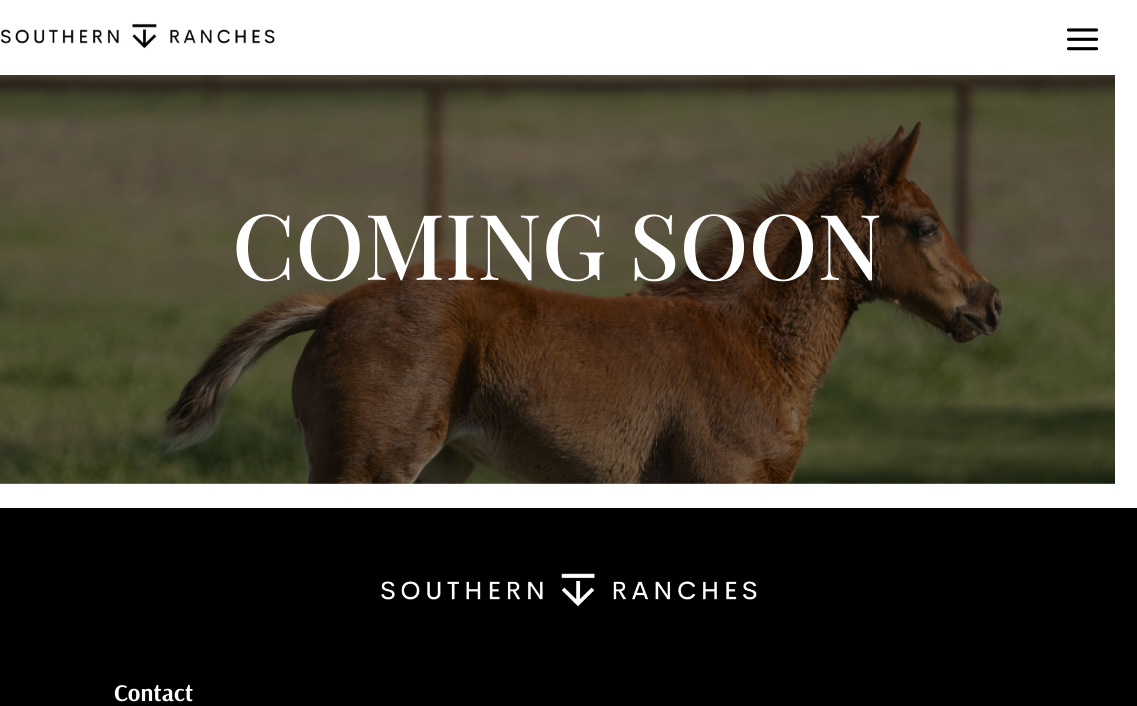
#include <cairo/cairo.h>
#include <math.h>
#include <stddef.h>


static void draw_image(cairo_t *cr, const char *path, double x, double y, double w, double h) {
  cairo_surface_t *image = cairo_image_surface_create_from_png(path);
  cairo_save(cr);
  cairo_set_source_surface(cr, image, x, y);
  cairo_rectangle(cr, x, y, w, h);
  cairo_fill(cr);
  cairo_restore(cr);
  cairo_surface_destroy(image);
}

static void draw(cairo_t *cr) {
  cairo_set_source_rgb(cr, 1, 1, 1);
  cairo_paint(cr);
  draw_image(cr, "images/1.png", 0, 23, 275, 26);
  draw_image(cr, "images/2.png", 1066, 28, 33, 23);
  draw_image(cr, "images/3.png", 0, 75, 1115, 409);
  cairo_set_source_rgb(cr, 0, 0, 0);
  cairo_rectangle(cr, 0, 508, 1137, 198);
  cairo_fill(cr);
  draw_image(cr, "images/4.png", 381, 573, 376, 34);
  cairo_select_font_face(cr, "Playfair Display Medium", CAIRO_FONT_SLANT_NORMAL, CAIRO_FONT_WEIGHT_NORMAL);
  cairo_set_font_size(cr, 91);
  cairo_set_source_rgb(cr, 1, 1, 1);
  cairo_move_to(cr, 232, 280);
  cairo_show_text(cr, "COMING SOON");
  cairo_select_font_face(cr, "Arsenal", CAIRO_FONT_SLANT_NORMAL, CAIRO_FONT_WEIGHT_BOLD);
  cairo_set_font_size(cr, 24);
  cairo_move_to(cr, 114, 701);
  cairo_show_text(cr, "Contact");
}

int main(void) {
  cairo_surface_t *surface = cairo_image_surface_create(CAIRO_FORMAT_RGB24, 1137, 706);
  cairo_t *cr = cairo_create(surface);
  cairo_font_options_t *options = cairo_font_options_create();
  cairo_font_options_set_hint_metrics(options, CAIRO_HINT_METRICS_OFF);
  cairo_font_options_set_hint_style(options, CAIRO_HINT_STYLE_NONE);
  cairo_set_font_options(cr, options);
  cairo_set_miter_limit(cr, 4);
  draw(cr);
  cairo_surface_write_to_png(surface, "out.png");
  cairo_font_options_destroy(options);
  cairo_destroy(cr);
  cairo_surface_destroy(surface);
  return 0;
}
